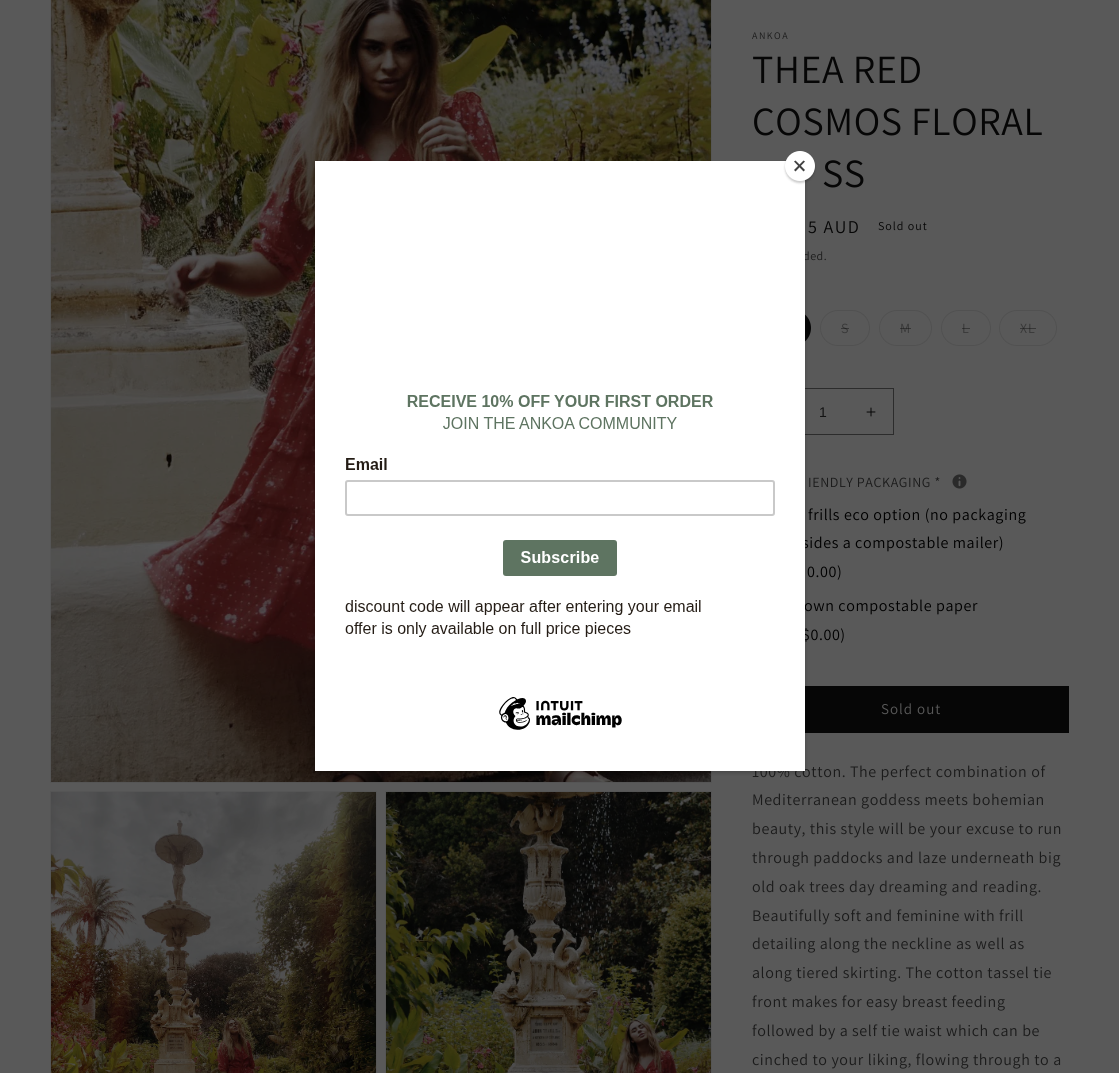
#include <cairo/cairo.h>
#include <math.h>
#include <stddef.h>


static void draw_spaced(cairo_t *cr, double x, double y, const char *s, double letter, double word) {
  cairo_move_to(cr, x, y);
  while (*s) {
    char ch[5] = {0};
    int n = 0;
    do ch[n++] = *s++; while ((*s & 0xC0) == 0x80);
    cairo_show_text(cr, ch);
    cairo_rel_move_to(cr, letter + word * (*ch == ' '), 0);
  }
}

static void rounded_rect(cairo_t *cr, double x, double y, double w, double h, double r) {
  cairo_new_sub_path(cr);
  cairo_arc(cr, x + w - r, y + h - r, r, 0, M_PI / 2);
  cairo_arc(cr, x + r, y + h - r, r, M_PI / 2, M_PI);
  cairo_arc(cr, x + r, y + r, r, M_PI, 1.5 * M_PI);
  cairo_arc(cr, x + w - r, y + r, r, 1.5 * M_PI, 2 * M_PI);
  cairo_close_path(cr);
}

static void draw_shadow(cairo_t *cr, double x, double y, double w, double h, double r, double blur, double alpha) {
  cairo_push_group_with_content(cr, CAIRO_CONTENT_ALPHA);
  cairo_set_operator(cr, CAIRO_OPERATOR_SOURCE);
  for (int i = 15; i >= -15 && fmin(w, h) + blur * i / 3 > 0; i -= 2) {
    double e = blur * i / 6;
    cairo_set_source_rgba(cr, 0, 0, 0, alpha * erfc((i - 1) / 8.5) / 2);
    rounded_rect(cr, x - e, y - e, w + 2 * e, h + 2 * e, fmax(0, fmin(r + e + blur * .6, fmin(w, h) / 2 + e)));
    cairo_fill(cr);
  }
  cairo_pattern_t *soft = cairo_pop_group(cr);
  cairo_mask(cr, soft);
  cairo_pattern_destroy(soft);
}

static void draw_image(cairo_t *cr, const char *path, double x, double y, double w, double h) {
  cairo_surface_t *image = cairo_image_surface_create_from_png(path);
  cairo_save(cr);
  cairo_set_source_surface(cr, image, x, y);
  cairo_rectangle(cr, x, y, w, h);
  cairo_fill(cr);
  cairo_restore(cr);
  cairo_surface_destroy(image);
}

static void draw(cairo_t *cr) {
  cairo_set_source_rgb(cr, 89 / 255.0, 89 / 255.0, 89 / 255.0);
  cairo_paint(cr);
  cairo_rectangle(cr, 50.5, -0.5, 661, 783);
  cairo_set_source_rgb(cr, 85 / 255.0, 85 / 255.0, 85 / 255.0);
  cairo_set_line_width(cr, 1);
  cairo_stroke(cr);
  draw_image(cr, "images/2.png", 51, 0, 660, 782);
  cairo_set_source_rgb(cr, 6 / 255.0, 6 / 255.0, 6 / 255.0);
  rounded_rect(cr, 752, 310, 59, 36, 18);
  cairo_fill(cr);
  draw_image(cr, "images/5.png", 866, 407, 10, 10);
  cairo_rectangle(cr, 752.5, 388.5, 141, 46);
  cairo_set_source_rgb(cr, 44 / 255.0, 44 / 255.0, 44 / 255.0);
  cairo_stroke(cr);
  cairo_set_source_rgb(cr, 6 / 255.0, 6 / 255.0, 6 / 255.0);
  cairo_rectangle(cr, 805, 686, 264, 47);
  cairo_fill(cr);
  cairo_set_source_rgb(cr, 0, 0, 0);
  draw_shadow(cr, 315, 163, 490, 610, 0, 2, 0.2);
  cairo_rectangle(cr, 50.5, 791.5, 326, 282);
  cairo_set_source_rgb(cr, 85 / 255.0, 85 / 255.0, 85 / 255.0);
  cairo_stroke(cr);
  draw_image(cr, "images/3.png", 51, 792, 325, 281);
  cairo_rectangle(cr, 385.5, 791.5, 326, 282);
  cairo_stroke(cr);
  draw_image(cr, "images/4.png", 386, 792, 325, 281);
  rounded_rect(cr, 820.5, 310.5, 49, 35, 17.5);
  cairo_set_source_rgb(cr, 81 / 255.0, 81 / 255.0, 81 / 255.0);
  cairo_stroke(cr);
  rounded_rect(cr, 879.5, 310.5, 52, 35, 17.5);
  cairo_stroke(cr);
  rounded_rect(cr, 941.5, 310.5, 49, 35, 17.5);
  cairo_stroke(cr);
  rounded_rect(cr, 999.5, 310.5, 57, 35, 17.5);
  cairo_stroke(cr);
  draw_image(cr, "images/6.png", 952, 474, 15, 15);
  cairo_select_font_face(cr, "Assistant", CAIRO_FONT_SLANT_NORMAL, CAIRO_FONT_WEIGHT_NORMAL);
  cairo_set_font_size(cr, 10);
  cairo_set_source_rgb(cr, 27 / 255.0, 27 / 255.0, 27 / 255.0);
  draw_spaced(cr, 752, 39, "ANKOA", 1.5, 0);
  cairo_set_font_size(cr, 40);
  cairo_set_source_rgb(cr, 6 / 255.0, 6 / 255.0, 6 / 255.0);
  draw_spaced(cr, 752, 83, "THEA RED", 0.6, 0);
  draw_spaced(cr, 752, 135, "COSMOS FLORAL", 0.6, 0);
  draw_spaced(cr, 822, 187, "SS", 0.6, 0);
  cairo_set_font_size(cr, 18);
  draw_spaced(cr, 808, 233, "5 AUD", 1.5, 0);
  cairo_set_font_size(cr, 12);
  draw_spaced(cr, 878, 230, "Sold out", 1, 0);
  cairo_set_source_rgb(cr, 27 / 255.0, 27 / 255.0, 27 / 255.0);
  draw_spaced(cr, 803, 260, "ded.", 0.5, 0);
  cairo_set_font_size(cr, 14);
  cairo_set_source_rgb(cr, 56 / 255.0, 56 / 255.0, 56 / 255.0);
  draw_spaced(cr, 841, 333, "S", 1, 0);
  cairo_set_source_rgba(cr, 6 / 255.0, 6 / 255.0, 6 / 255.0, 0.4);
  cairo_rectangle(cr, 841, 328, 8, 1);
  cairo_fill(cr);
  cairo_set_source_rgb(cr, 56 / 255.0, 56 / 255.0, 56 / 255.0);
  draw_spaced(cr, 900, 333, "M", 1, 0);
  cairo_set_source_rgba(cr, 6 / 255.0, 6 / 255.0, 6 / 255.0, 0.4);
  cairo_rectangle(cr, 900, 328, 11, 1);
  cairo_fill(cr);
  cairo_set_source_rgb(cr, 56 / 255.0, 56 / 255.0, 56 / 255.0);
  draw_spaced(cr, 962, 333, "L", 1, 0);
  cairo_set_source_rgba(cr, 6 / 255.0, 6 / 255.0, 6 / 255.0, 0.4);
  cairo_rectangle(cr, 962, 328, 8, 1);
  cairo_fill(cr);
  cairo_set_source_rgb(cr, 56 / 255.0, 56 / 255.0, 56 / 255.0);
  draw_spaced(cr, 1020, 333, "XL", 1, 0);
  cairo_set_source_rgba(cr, 6 / 255.0, 6 / 255.0, 6 / 255.0, 0.4);
  cairo_rectangle(cr, 1020, 328, 16, 1);
  cairo_fill(cr);
  cairo_select_font_face(cr, "Liberation Sans", CAIRO_FONT_SLANT_NORMAL, CAIRO_FONT_WEIGHT_NORMAL);
  cairo_set_source_rgb(cr, 19 / 255.0, 19 / 255.0, 19 / 255.0);
  cairo_move_to(cr, 819, 417);
  cairo_show_text(cr, "1");
  cairo_select_font_face(cr, "Assistant", CAIRO_FONT_SLANT_NORMAL, CAIRO_FONT_WEIGHT_NORMAL);
  cairo_set_source_rgb(cr, 27 / 255.0, 27 / 255.0, 27 / 255.0);
  draw_spaced(cr, 808, 487, "IENDLY PACKAGING *", 0.6, 0);
  cairo_set_font_size(cr, 16);
  cairo_set_source_rgb(cr, 0, 0, 0);
  draw_spaced(cr, 808, 520, "frills eco option (no packaging", 0.6, 0);
  draw_spaced(cr, 802, 548, "sides a compostable mailer)", 0.6, 0);
  draw_spaced(cr, 807, 577, "0.00)", 0.6, 0);
  draw_spaced(cr, 804, 611, "own compostable paper", 0.6, 0);
  draw_spaced(cr, 802, 640, "$0.00)", 0.6, 0);
  cairo_set_font_size(cr, 15);
  cairo_set_source_rgb(cr, 89 / 255.0, 89 / 255.0, 89 / 255.0);
  draw_spaced(cr, 881, 714, "Sold out", 1, 0);
  cairo_set_font_size(cr, 16);
  cairo_set_source_rgb(cr, 27 / 255.0, 27 / 255.0, 27 / 255.0);
  draw_spaced(cr, 752, 777, "100% cotton. The perfect combination of", 0.6, 0);
  draw_image(cr, "images/1.png", 315, 161, 490, 610);
  cairo_set_source_rgb(cr, 0, 0, 0);
  draw_shadow(cr, 785, 153, 30, 30, 15, 1, 0.2);
  cairo_set_source_rgb(cr, 1, 1, 1);
  cairo_arc(cr, 800, 166, 15, 0, 2 * M_PI);
  cairo_fill(cr);
  cairo_set_source_rgb(cr, 65 / 255.0, 65 / 255.0, 65 / 255.0);
  cairo_new_path(cr);
  cairo_move_to(cr, 803.5, 160.5);
  cairo_line_to(cr, 805, 161.5);
  cairo_line_to(cr, 795.5, 171.5);
  cairo_line_to(cr, 794, 170);
  cairo_close_path(cr);
  cairo_fill(cr);
  cairo_new_path(cr);
  cairo_move_to(cr, 794, 161.5);
  cairo_line_to(cr, 795.5, 160.5);
  cairo_line_to(cr, 805, 170);
  cairo_line_to(cr, 803.5, 171.5);
  cairo_close_path(cr);
  cairo_fill(cr);
  cairo_set_source_rgb(cr, 27 / 255.0, 27 / 255.0, 27 / 255.0);
  draw_spaced(cr, 752, 805, "Mediterranean goddess meets bohemian", 0.6, 0);
  draw_spaced(cr, 752, 834, "beauty, this style will be your excuse to run", 0.6, 0);
  draw_spaced(cr, 752, 863, "through paddocks and laze underneath big", 0.6, 0);
  draw_spaced(cr, 752, 892, "old oak trees day dreaming and reading.", 0.6, 0);
  draw_spaced(cr, 752, 921, "Beautifully soft and feminine with frill", 0.6, 0);
  draw_spaced(cr, 752, 949, "detailing along the neckline as well as", 0.6, 0);
  draw_spaced(cr, 752, 978, "along tiered skirting. The cotton tassel tie", 0.6, 0);
  draw_spaced(cr, 752, 1007, "front makes for easy breast feeding", 0.6, 0);
  draw_spaced(cr, 752, 1036, "followed by a self tie waist which can be", 0.6, 0);
  draw_spaced(cr, 752, 1065, "cinched to your liking, flowing through to a", 0.6, 0);
}

int main(void) {
  cairo_surface_t *surface = cairo_image_surface_create(CAIRO_FORMAT_RGB24, 1119, 1073);
  cairo_t *cr = cairo_create(surface);
  cairo_font_options_t *options = cairo_font_options_create();
  cairo_font_options_set_hint_metrics(options, CAIRO_HINT_METRICS_OFF);
  cairo_font_options_set_hint_style(options, CAIRO_HINT_STYLE_NONE);
  cairo_set_font_options(cr, options);
  cairo_set_miter_limit(cr, 4);
  draw(cr);
  cairo_surface_write_to_png(surface, "out.png");
  cairo_font_options_destroy(options);
  cairo_destroy(cr);
  cairo_surface_destroy(surface);
  return 0;
}
